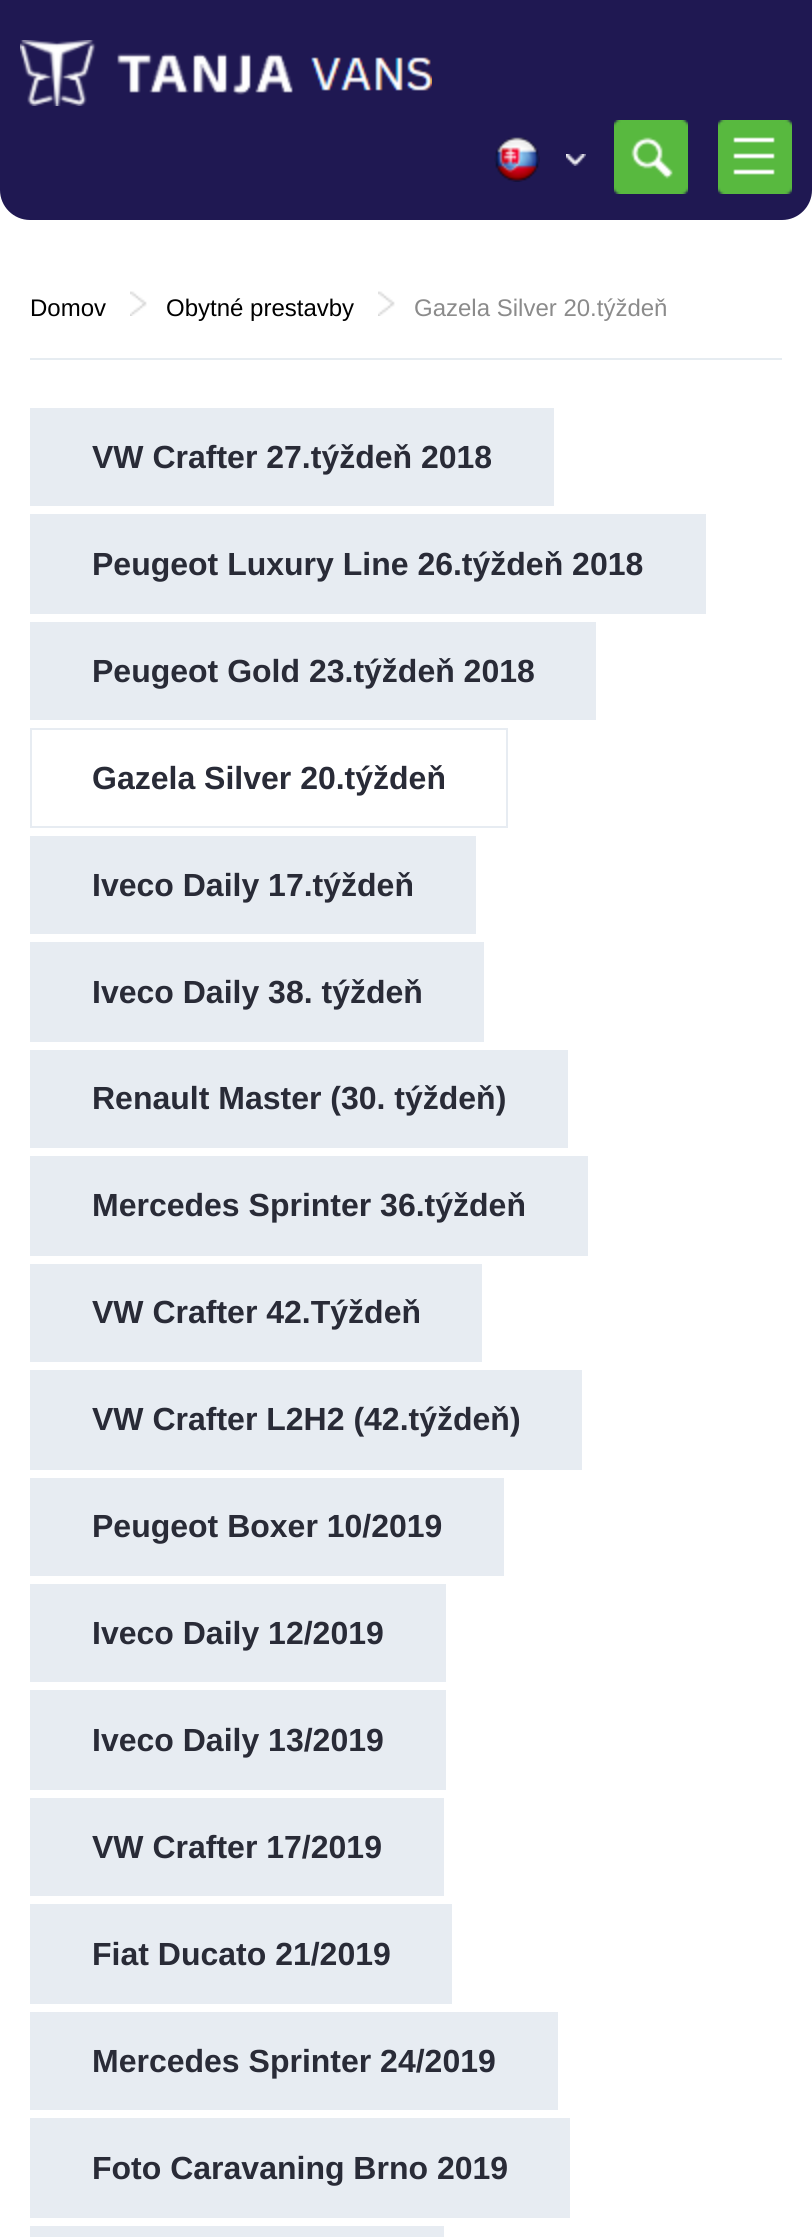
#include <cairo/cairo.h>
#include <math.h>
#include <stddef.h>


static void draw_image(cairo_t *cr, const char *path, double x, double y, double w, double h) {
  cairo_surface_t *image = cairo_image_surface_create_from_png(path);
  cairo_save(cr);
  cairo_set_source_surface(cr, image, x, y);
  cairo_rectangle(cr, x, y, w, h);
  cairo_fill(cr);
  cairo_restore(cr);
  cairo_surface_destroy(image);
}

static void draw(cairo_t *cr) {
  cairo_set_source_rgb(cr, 1, 1, 1);
  cairo_paint(cr);
  cairo_set_source_rgb(cr, 31 / 255.0, 24 / 255.0, 82 / 255.0);
  cairo_new_path(cr);
  cairo_move_to(cr, 0, 0);
  cairo_line_to(cr, 812, 0);
  cairo_line_to(cr, 812, 190);
  cairo_curve_to(cr, 812, 206.5, 798.5, 220, 782, 220);
  cairo_line_to(cr, 30, 220);
  cairo_curve_to(cr, 13.5, 220, 0, 206.5, 0, 190);
  cairo_close_path(cr);
  cairo_fill(cr);
  draw_image(cr, "images/1.png", 20, 40, 412, 66);
  draw_image(cr, "images/2.png", 566, 154, 20, 12);
  draw_image(cr, "images/3.png", 494, 137, 46, 45);
  draw_image(cr, "images/4.png", 614, 120, 74, 74);
  draw_image(cr, "images/5.png", 718, 120, 74, 74);
  cairo_set_source_rgb(cr, 230 / 255.0, 236 / 255.0, 241 / 255.0);
  cairo_rectangle(cr, 30, 358, 752, 2);
  cairo_fill(cr);
  draw_image(cr, "images/6.png", 130, 291, 17, 25);
  draw_image(cr, "images/6.png", 378, 291, 17, 25);
  cairo_set_source_rgb(cr, 231 / 255.0, 236 / 255.0, 242 / 255.0);
  cairo_rectangle(cr, 30, 408, 524, 98);
  cairo_fill(cr);
  cairo_rectangle(cr, 30, 514, 676, 100);
  cairo_fill(cr);
  cairo_rectangle(cr, 30, 622, 566, 98);
  cairo_fill(cr);
  cairo_rectangle(cr, 31, 729, 476, 98);
  cairo_stroke(cr);
  cairo_rectangle(cr, 30, 836, 446, 98);
  cairo_fill(cr);
  cairo_rectangle(cr, 30, 942, 454, 100);
  cairo_fill(cr);
  cairo_rectangle(cr, 30, 1050, 538, 98);
  cairo_fill(cr);
  cairo_rectangle(cr, 30, 1156, 558, 100);
  cairo_fill(cr);
  cairo_rectangle(cr, 30, 1264, 452, 98);
  cairo_fill(cr);
  cairo_rectangle(cr, 30, 1370, 552, 100);
  cairo_fill(cr);
  cairo_rectangle(cr, 30, 1478, 474, 98);
  cairo_fill(cr);
  cairo_rectangle(cr, 30, 1584, 416, 98);
  cairo_fill(cr);
  cairo_rectangle(cr, 30, 1690, 416, 100);
  cairo_fill(cr);
  cairo_rectangle(cr, 30, 1798, 414, 98);
  cairo_fill(cr);
  cairo_rectangle(cr, 30, 1904, 422, 100);
  cairo_fill(cr);
  cairo_rectangle(cr, 30, 2012, 528, 98);
  cairo_fill(cr);
  cairo_rectangle(cr, 30, 2118, 540, 100);
  cairo_fill(cr);
  cairo_rectangle(cr, 30, 2226, 414, 11);
  cairo_fill(cr);
  cairo_select_font_face(cr, "Liberation Sans", CAIRO_FONT_SLANT_NORMAL, CAIRO_FONT_WEIGHT_NORMAL);
  cairo_set_font_size(cr, 24);
  cairo_set_source_rgb(cr, 0, 0, 0);
  cairo_move_to(cr, 30, 316);
  cairo_show_text(cr, "Domov");
  cairo_move_to(cr, 166, 316);
  cairo_show_text(cr, "Obytné prestavby");
  cairo_set_source_rgb(cr, 139 / 255.0, 139 / 255.0, 139 / 255.0);
  cairo_move_to(cr, 414, 316);
  cairo_show_text(cr, "Gazela Silver 20.týždeň");
  cairo_select_font_face(cr, "Liberation Sans", CAIRO_FONT_SLANT_NORMAL, CAIRO_FONT_WEIGHT_BOLD);
  cairo_set_font_size(cr, 32);
  cairo_set_source_rgb(cr, 41 / 255.0, 43 / 255.0, 55 / 255.0);
  cairo_move_to(cr, 92, 468);
  cairo_show_text(cr, "VW Crafter 27.týždeň 2018");
  cairo_move_to(cr, 92, 575);
  cairo_show_text(cr, "Peugeot Luxury Line 26.týždeň 2018");
  cairo_move_to(cr, 92, 682);
  cairo_show_text(cr, "Peugeot Gold 23.týždeň 2018");
  cairo_move_to(cr, 92, 789);
  cairo_show_text(cr, "Gazela Silver 20.týždeň");
  cairo_move_to(cr, 92, 896);
  cairo_show_text(cr, "Iveco Daily 17.týždeň");
  cairo_move_to(cr, 92, 1003);
  cairo_show_text(cr, "Iveco Daily 38. týždeň");
  cairo_move_to(cr, 92, 1109);
  cairo_show_text(cr, "Renault Master (30. týždeň)");
  cairo_move_to(cr, 92, 1216);
  cairo_show_text(cr, "Mercedes Sprinter 36.týždeň");
  cairo_move_to(cr, 92, 1323);
  cairo_show_text(cr, "VW Crafter 42.Týždeň");
  cairo_move_to(cr, 92, 1430);
  cairo_show_text(cr, "VW Crafter L2H2 (42.týždeň)");
  cairo_move_to(cr, 92, 1537);
  cairo_show_text(cr, "Peugeot Boxer 10/2019");
  cairo_move_to(cr, 92, 1644);
  cairo_show_text(cr, "Iveco Daily 12/2019");
  cairo_move_to(cr, 92, 1751);
  cairo_show_text(cr, "Iveco Daily 13/2019");
  cairo_move_to(cr, 92, 1858);
  cairo_show_text(cr, "VW Crafter 17/2019");
  cairo_move_to(cr, 92, 1965);
  cairo_show_text(cr, "Fiat Ducato 21/2019");
  cairo_move_to(cr, 92, 2072);
  cairo_show_text(cr, "Mercedes Sprinter 24/2019");
  cairo_move_to(cr, 92, 2179);
  cairo_show_text(cr, "Foto Caravaning Brno 2019");
}

int main(void) {
  cairo_surface_t *surface = cairo_image_surface_create(CAIRO_FORMAT_RGB24, 812, 2237);
  cairo_t *cr = cairo_create(surface);
  cairo_font_options_t *options = cairo_font_options_create();
  cairo_font_options_set_hint_metrics(options, CAIRO_HINT_METRICS_OFF);
  cairo_font_options_set_hint_style(options, CAIRO_HINT_STYLE_NONE);
  cairo_set_font_options(cr, options);
  cairo_set_miter_limit(cr, 4);
  draw(cr);
  cairo_surface_write_to_png(surface, "out.png");
  cairo_font_options_destroy(options);
  cairo_destroy(cr);
  cairo_surface_destroy(surface);
  return 0;
}
